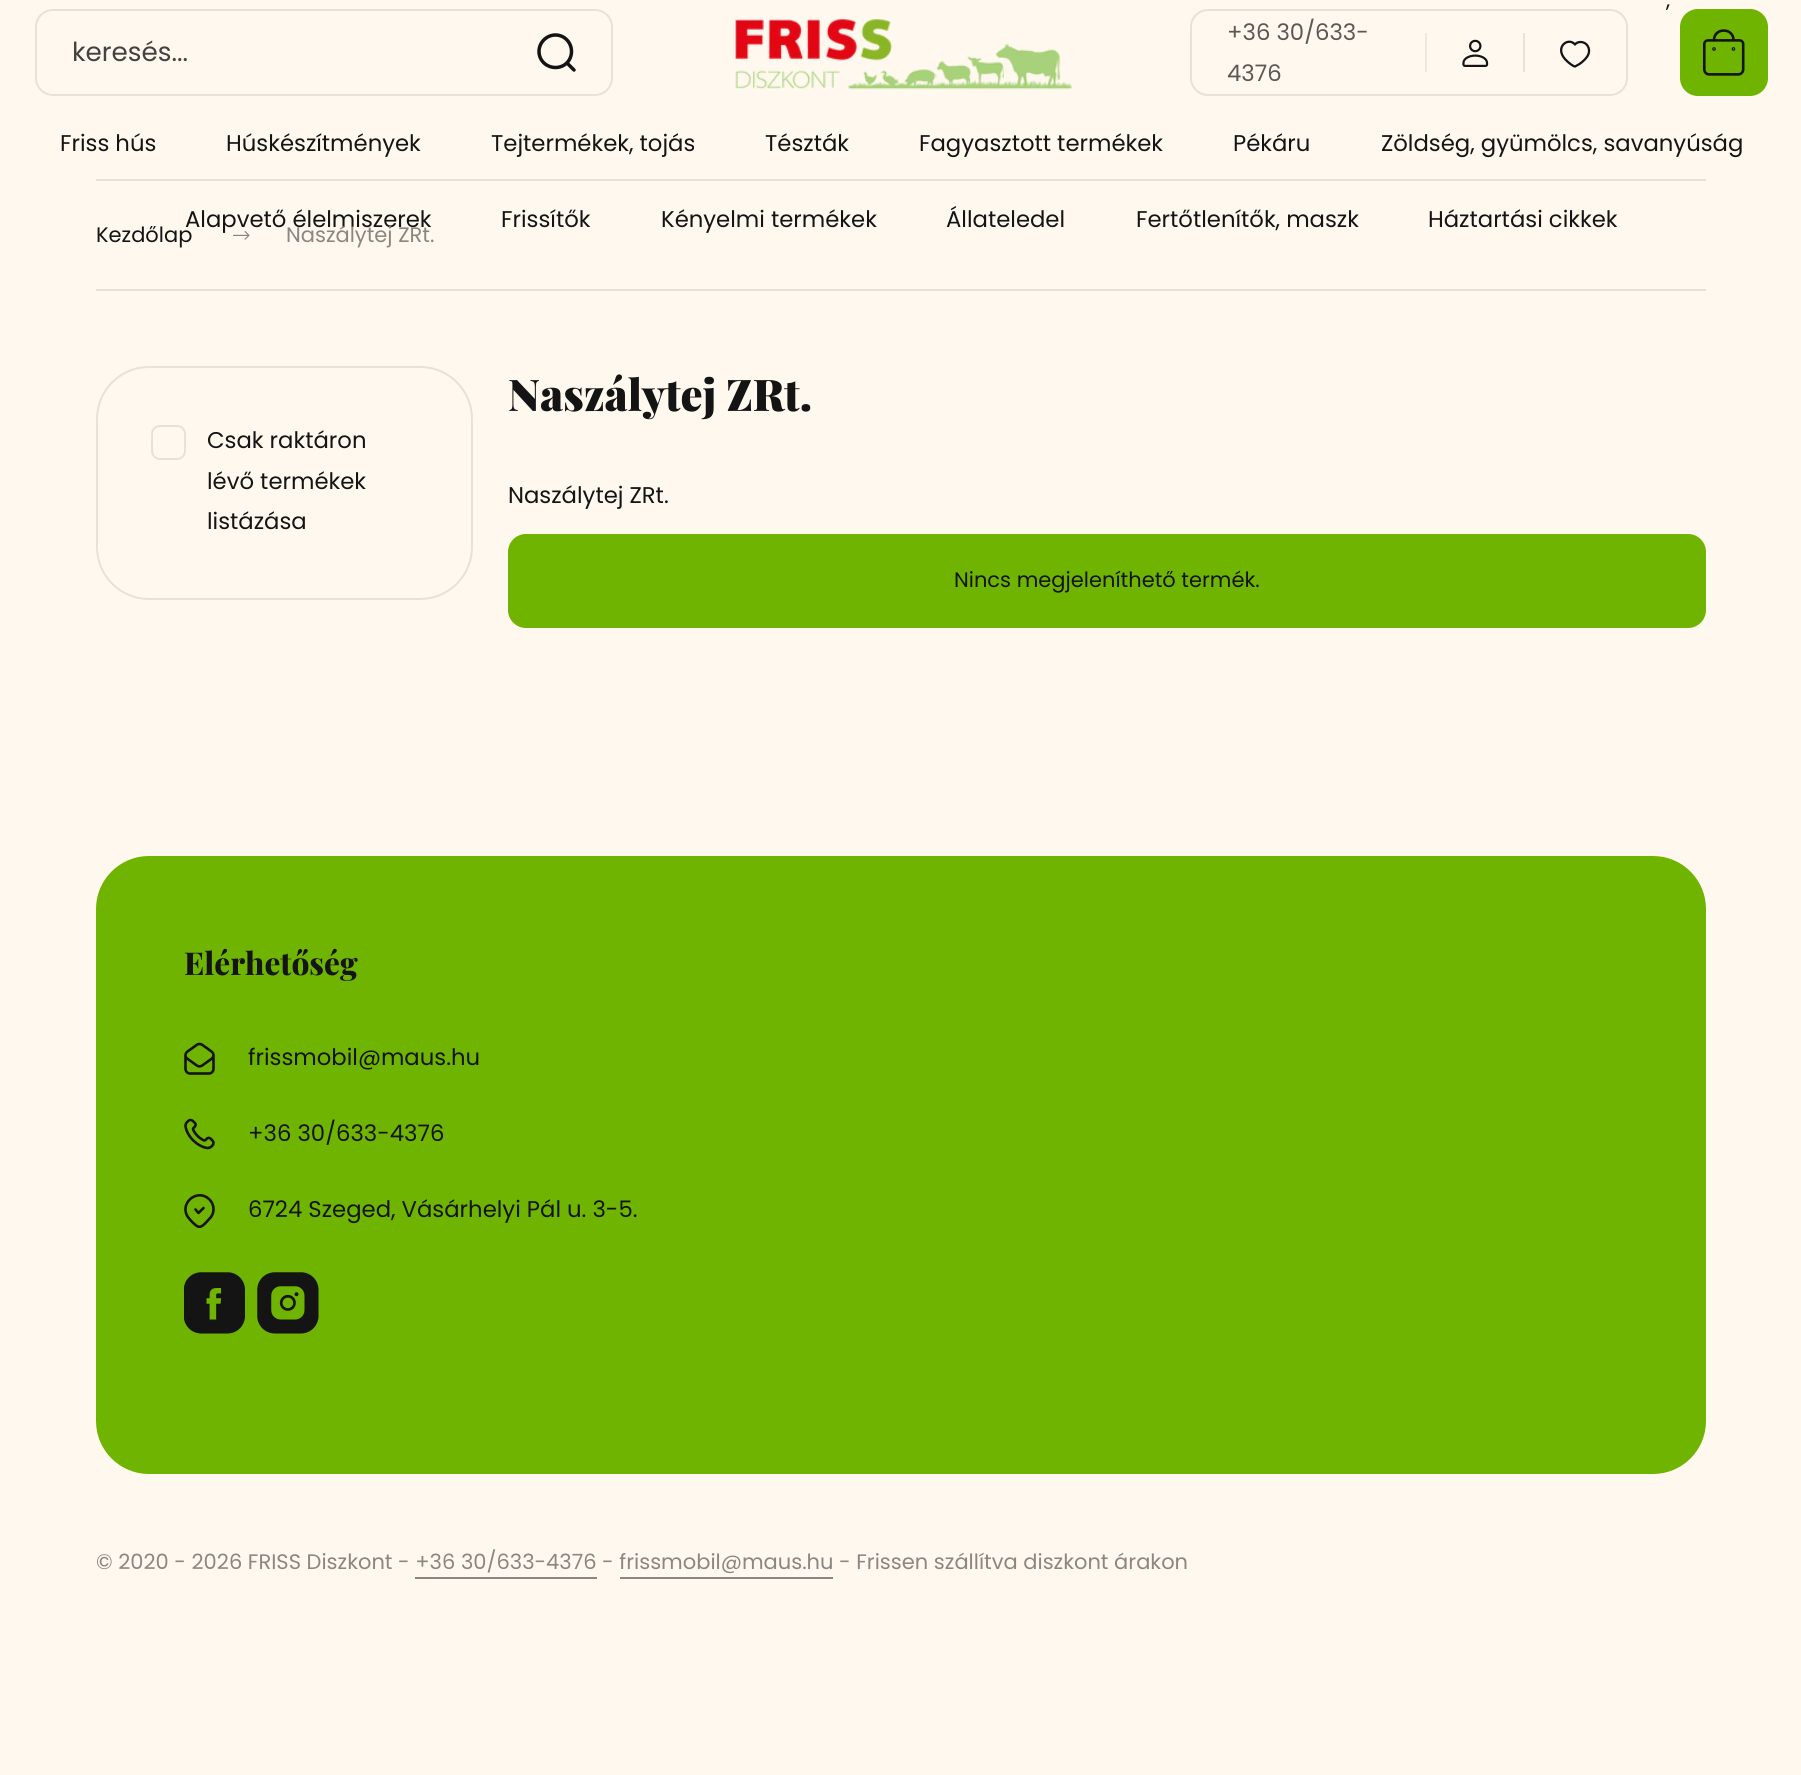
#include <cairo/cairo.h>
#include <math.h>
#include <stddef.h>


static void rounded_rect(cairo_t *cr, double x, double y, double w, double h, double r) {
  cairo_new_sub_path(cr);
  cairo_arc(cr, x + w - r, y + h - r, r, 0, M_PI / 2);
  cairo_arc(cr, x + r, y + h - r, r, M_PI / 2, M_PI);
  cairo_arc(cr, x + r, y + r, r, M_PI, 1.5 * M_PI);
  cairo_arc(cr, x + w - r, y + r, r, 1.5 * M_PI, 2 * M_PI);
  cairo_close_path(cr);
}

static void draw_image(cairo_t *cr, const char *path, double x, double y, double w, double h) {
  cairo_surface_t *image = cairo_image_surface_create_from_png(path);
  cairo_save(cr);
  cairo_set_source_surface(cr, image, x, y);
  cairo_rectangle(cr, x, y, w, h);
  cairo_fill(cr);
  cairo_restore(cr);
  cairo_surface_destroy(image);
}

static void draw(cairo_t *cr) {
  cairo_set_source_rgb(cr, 1, 248 / 255.0, 238 / 255.0);
  cairo_paint(cr);
  rounded_rect(cr, 36, 10, 576, 85, 17);
  cairo_set_source_rgb(cr, 232 / 255.0, 225 / 255.0, 216 / 255.0);
  cairo_stroke(cr);
  cairo_new_path(cr);
  cairo_move_to(cr, 574, 70);
  cairo_line_to(cr, 567, 63);
  cairo_move_to(cr, 555.5, 67.5);
  cairo_curve_to(cr, 546.5, 67.5, 539, 60.5, 539, 51.5);
  cairo_curve_to(cr, 539, 42.5, 546.5, 35, 555.5, 35);
  cairo_curve_to(cr, 564.5, 35, 571.5, 42.5, 571.5, 51.5);
  cairo_curve_to(cr, 571.5, 60.5, 564.5, 67.5, 555.5, 67.5);
  cairo_close_path(cr);
  cairo_set_source_rgb(cr, 20 / 255.0, 20 / 255.0, 20 / 255.0);
  cairo_set_line_width(cr, 3.5);
  cairo_set_line_cap(cr, CAIRO_LINE_CAP_ROUND);
  cairo_set_line_join(cr, CAIRO_LINE_JOIN_ROUND);
  cairo_stroke(cr);
  draw_image(cr, "images/1.png", 735, 18, 337, 72);
  rounded_rect(cr, 1191, 10, 436, 85, 17);
  cairo_set_source_rgb(cr, 232 / 255.0, 225 / 255.0, 216 / 255.0);
  cairo_set_line_width(cr, 2);
  cairo_set_line_cap(cr, CAIRO_LINE_CAP_BUTT);
  cairo_set_line_join(cr, CAIRO_LINE_JOIN_MITER);
  cairo_stroke(cr);
  cairo_set_source_rgb(cr, 239 / 255.0, 232 / 255.0, 223 / 255.0);
  cairo_rectangle(cr, 1425, 33, 2, 39);
  cairo_fill(cr);
  draw_image(cr, "images/2.png", 1462, 39, 27, 28);
  cairo_set_source_rgb(cr, 232 / 255.0, 225 / 255.0, 216 / 255.0);
  cairo_rectangle(cr, 1523, 33, 2, 39);
  cairo_fill(cr);
  cairo_new_path(cr);
  cairo_move_to(cr, 1580.5, 42);
  cairo_curve_to(cr, 1587, 42, 1590.5, 48.5, 1588.5, 54);
  cairo_curve_to(cr, 1587, 58, 1583, 61.5, 1579.5, 64);
  cairo_line_to(cr, 1575, 66.5);
  cairo_curve_to(cr, 1573.5, 66.5, 1569, 63, 1568, 62);
  cairo_curve_to(cr, 1552, 48.5, 1568, 36, 1575, 44.5);
  cairo_curve_to(cr, 1576, 43, 1578, 42, 1580.5, 42);
  cairo_close_path(cr);
  cairo_set_source_rgb(cr, 20 / 255.0, 20 / 255.0, 20 / 255.0);
  cairo_set_line_width(cr, 2.3);
  cairo_set_line_cap(cr, CAIRO_LINE_CAP_ROUND);
  cairo_set_line_join(cr, CAIRO_LINE_JOIN_ROUND);
  cairo_stroke(cr);
  cairo_set_source_rgb(cr, 111 / 255.0, 180 / 255.0, 0);
  rounded_rect(cr, 1681, 10, 86, 85, 17);
  cairo_fill_preserve(cr);
  cairo_set_line_width(cr, 2);
  cairo_set_line_cap(cr, CAIRO_LINE_CAP_BUTT);
  cairo_set_line_join(cr, CAIRO_LINE_JOIN_MITER);
  cairo_stroke(cr);
  draw_image(cr, "images/3.png", 1703, 29, 42, 47);
  cairo_set_source_rgb(cr, 232 / 255.0, 225 / 255.0, 216 / 255.0);
  cairo_rectangle(cr, 96, 179, 1610, 2);
  cairo_fill(cr);
  cairo_rectangle(cr, 96, 289, 1610, 2);
  cairo_fill(cr);
  draw_image(cr, "images/4.png", 233, 231, 17, 9);
  rounded_rect(cr, 97, 367, 375, 232, 52);
  cairo_stroke(cr);
  rounded_rect(cr, 152, 426, 33, 33, 8);
  cairo_stroke(cr);
  cairo_set_source_rgb(cr, 111 / 255.0, 180 / 255.0, 0);
  rounded_rect(cr, 508, 534, 1198, 94, 18);
  cairo_fill(cr);
  rounded_rect(cr, 96, 856, 1610, 618, 53);
  cairo_fill(cr);
  draw_image(cr, "images/5.png", 184, 1042, 31, 33);
  draw_image(cr, "images/6.png", 184, 1118, 31, 32);
  cairo_new_path(cr);
  cairo_move_to(cr, 195.5, 1209.5);
  cairo_line_to(cr, 198.5, 1213);
  cairo_line_to(cr, 203.5, 1208);
  cairo_move_to(cr, 209.5, 1199.5);
  cairo_curve_to(cr, 214, 1204, 215, 1211.5, 211, 1217);
  cairo_line_to(cr, 206.5, 1222);
  cairo_curve_to(cr, 203, 1225.5, 200, 1229, 195.5, 1225);
  cairo_curve_to(cr, 192.5, 1222.5, 188, 1218, 186.5, 1214.5);
  cairo_curve_to(cr, 181, 1201, 198.5, 1188.5, 209.5, 1199.5);
  cairo_close_path(cr);
  cairo_set_source_rgb(cr, 20 / 255.0, 20 / 255.0, 20 / 255.0);
  cairo_set_line_width(cr, 2.6);
  cairo_set_line_cap(cr, CAIRO_LINE_CAP_ROUND);
  cairo_set_line_join(cr, CAIRO_LINE_JOIN_ROUND);
  cairo_stroke(cr);
  draw_image(cr, "images/7.png", 184, 1272, 61, 62);
  draw_image(cr, "images/8.png", 257, 1272, 62, 62);
  cairo_set_source_rgb(cr, 138 / 255.0, 134 / 255.0, 129 / 255.0);
  cairo_rectangle(cr, 415, 1577, 182, 2);
  cairo_fill(cr);
  cairo_rectangle(cr, 620, 1577, 213, 2);
  cairo_fill(cr);
  cairo_select_font_face(cr, "Poppins", CAIRO_FONT_SLANT_NORMAL, CAIRO_FONT_WEIGHT_NORMAL);
  cairo_set_font_size(cr, 21);
  cairo_set_source_rgb(cr, 20 / 255.0, 20 / 255.0, 20 / 255.0);
  cairo_move_to(cr, 1666, 7);
  cairo_show_text(cr, ",");
  cairo_set_font_size(cr, 26.25);
  cairo_set_source_rgb(cr, 67 / 255.0, 66 / 255.0, 64 / 255.0);
  cairo_move_to(cr, 72, 61);
  cairo_show_text(cr, "keresés...");
  cairo_set_font_size(cr, 22.75);
  cairo_set_source_rgb(cr, 91 / 255.0, 88 / 255.0, 85 / 255.0);
  cairo_move_to(cr, 1227, 40);
  cairo_show_text(cr, "+36 30/633-");
  cairo_move_to(cr, 1227, 81);
  cairo_show_text(cr, "4376");
  cairo_set_source_rgb(cr, 20 / 255.0, 20 / 255.0, 20 / 255.0);
  cairo_move_to(cr, 60, 151);
  cairo_show_text(cr, "Friss hús");
  cairo_move_to(cr, 226, 151);
  cairo_show_text(cr, "Húskészítmények");
  cairo_move_to(cr, 491, 151);
  cairo_show_text(cr, "Tejtermékek, tojás");
  cairo_move_to(cr, 765, 151);
  cairo_show_text(cr, "Tészták");
  cairo_move_to(cr, 919, 151);
  cairo_show_text(cr, "Fagyasztott termékek");
  cairo_move_to(cr, 1233, 151);
  cairo_show_text(cr, "Pékáru");
  cairo_move_to(cr, 1381, 151);
  cairo_show_text(cr, "Zöldség, gyümölcs, savanyúság");
  cairo_move_to(cr, 185, 227);
  cairo_show_text(cr, "Alapvető élelmiszerek");
  cairo_move_to(cr, 501, 227);
  cairo_show_text(cr, "Frissítők");
  cairo_move_to(cr, 661, 227);
  cairo_show_text(cr, "Kényelmi termékek");
  cairo_move_to(cr, 946, 227);
  cairo_show_text(cr, "Állateledel");
  cairo_move_to(cr, 1136, 227);
  cairo_show_text(cr, "Fertőtlenítők, maszk");
  cairo_move_to(cr, 1428, 227);
  cairo_show_text(cr, "Háztartási cikkek");
  cairo_set_font_size(cr, 21);
  cairo_move_to(cr, 96, 242);
  cairo_show_text(cr, "Kezdőlap");
  cairo_set_source_rgb(cr, 138 / 255.0, 134 / 255.0, 129 / 255.0);
  cairo_move_to(cr, 286, 242);
  cairo_show_text(cr, "Naszálytej ZRt.");
  cairo_set_font_size(cr, 22.75);
  cairo_set_source_rgb(cr, 20 / 255.0, 20 / 255.0, 20 / 255.0);
  cairo_move_to(cr, 207, 448);
  cairo_show_text(cr, "Csak raktáron");
  cairo_move_to(cr, 207, 489);
  cairo_show_text(cr, "lévő termékek");
  cairo_move_to(cr, 207, 529);
  cairo_show_text(cr, "listázása");
  cairo_select_font_face(cr, "Playfair Display Black", CAIRO_FONT_SLANT_NORMAL, CAIRO_FONT_WEIGHT_NORMAL);
  cairo_set_font_size(cr, 43.75);
  cairo_move_to(cr, 508, 411);
  cairo_show_text(cr, "Naszálytej ZRt.");
  cairo_select_font_face(cr, "Poppins", CAIRO_FONT_SLANT_NORMAL, CAIRO_FONT_WEIGHT_NORMAL);
  cairo_set_font_size(cr, 22.75);
  cairo_move_to(cr, 508, 503);
  cairo_show_text(cr, "Naszálytej ZRt.");
  cairo_set_font_size(cr, 21);
  cairo_move_to(cr, 954, 587);
  cairo_show_text(cr, "Nincs megjeleníthető termék.");
  cairo_select_font_face(cr, "Playfair Display ExtraBold", CAIRO_FONT_SLANT_NORMAL, CAIRO_FONT_WEIGHT_NORMAL);
  cairo_set_font_size(cr, 31.5);
  cairo_move_to(cr, 184, 975);
  cairo_show_text(cr, "Elérhetőség");
  cairo_select_font_face(cr, "Poppins", CAIRO_FONT_SLANT_NORMAL, CAIRO_FONT_WEIGHT_NORMAL);
  cairo_set_font_size(cr, 22.75);
  cairo_move_to(cr, 248, 1065);
  cairo_show_text(cr, "frissmobil@maus.hu");
  cairo_move_to(cr, 248, 1141);
  cairo_show_text(cr, "+36 30/633-4376");
  cairo_move_to(cr, 248, 1217);
  cairo_show_text(cr, "6724 Szeged, Vásárhelyi Pál u. 3-5.");
  cairo_set_font_size(cr, 21);
  cairo_set_source_rgb(cr, 138 / 255.0, 134 / 255.0, 129 / 255.0);
  cairo_move_to(cr, 96, 1569);
  cairo_show_text(cr, "© 2020 - 2026 FRISS Diszkont - +36 30/633-4376 - frissmobil@maus.hu - Frissen szállítva diszkont árakon");
}

int main(void) {
  cairo_surface_t *surface = cairo_image_surface_create(CAIRO_FORMAT_RGB24, 1801, 1775);
  cairo_t *cr = cairo_create(surface);
  cairo_font_options_t *options = cairo_font_options_create();
  cairo_font_options_set_hint_metrics(options, CAIRO_HINT_METRICS_OFF);
  cairo_font_options_set_hint_style(options, CAIRO_HINT_STYLE_NONE);
  cairo_set_font_options(cr, options);
  cairo_set_miter_limit(cr, 4);
  draw(cr);
  cairo_surface_write_to_png(surface, "out.png");
  cairo_font_options_destroy(options);
  cairo_destroy(cr);
  cairo_surface_destroy(surface);
  return 0;
}
